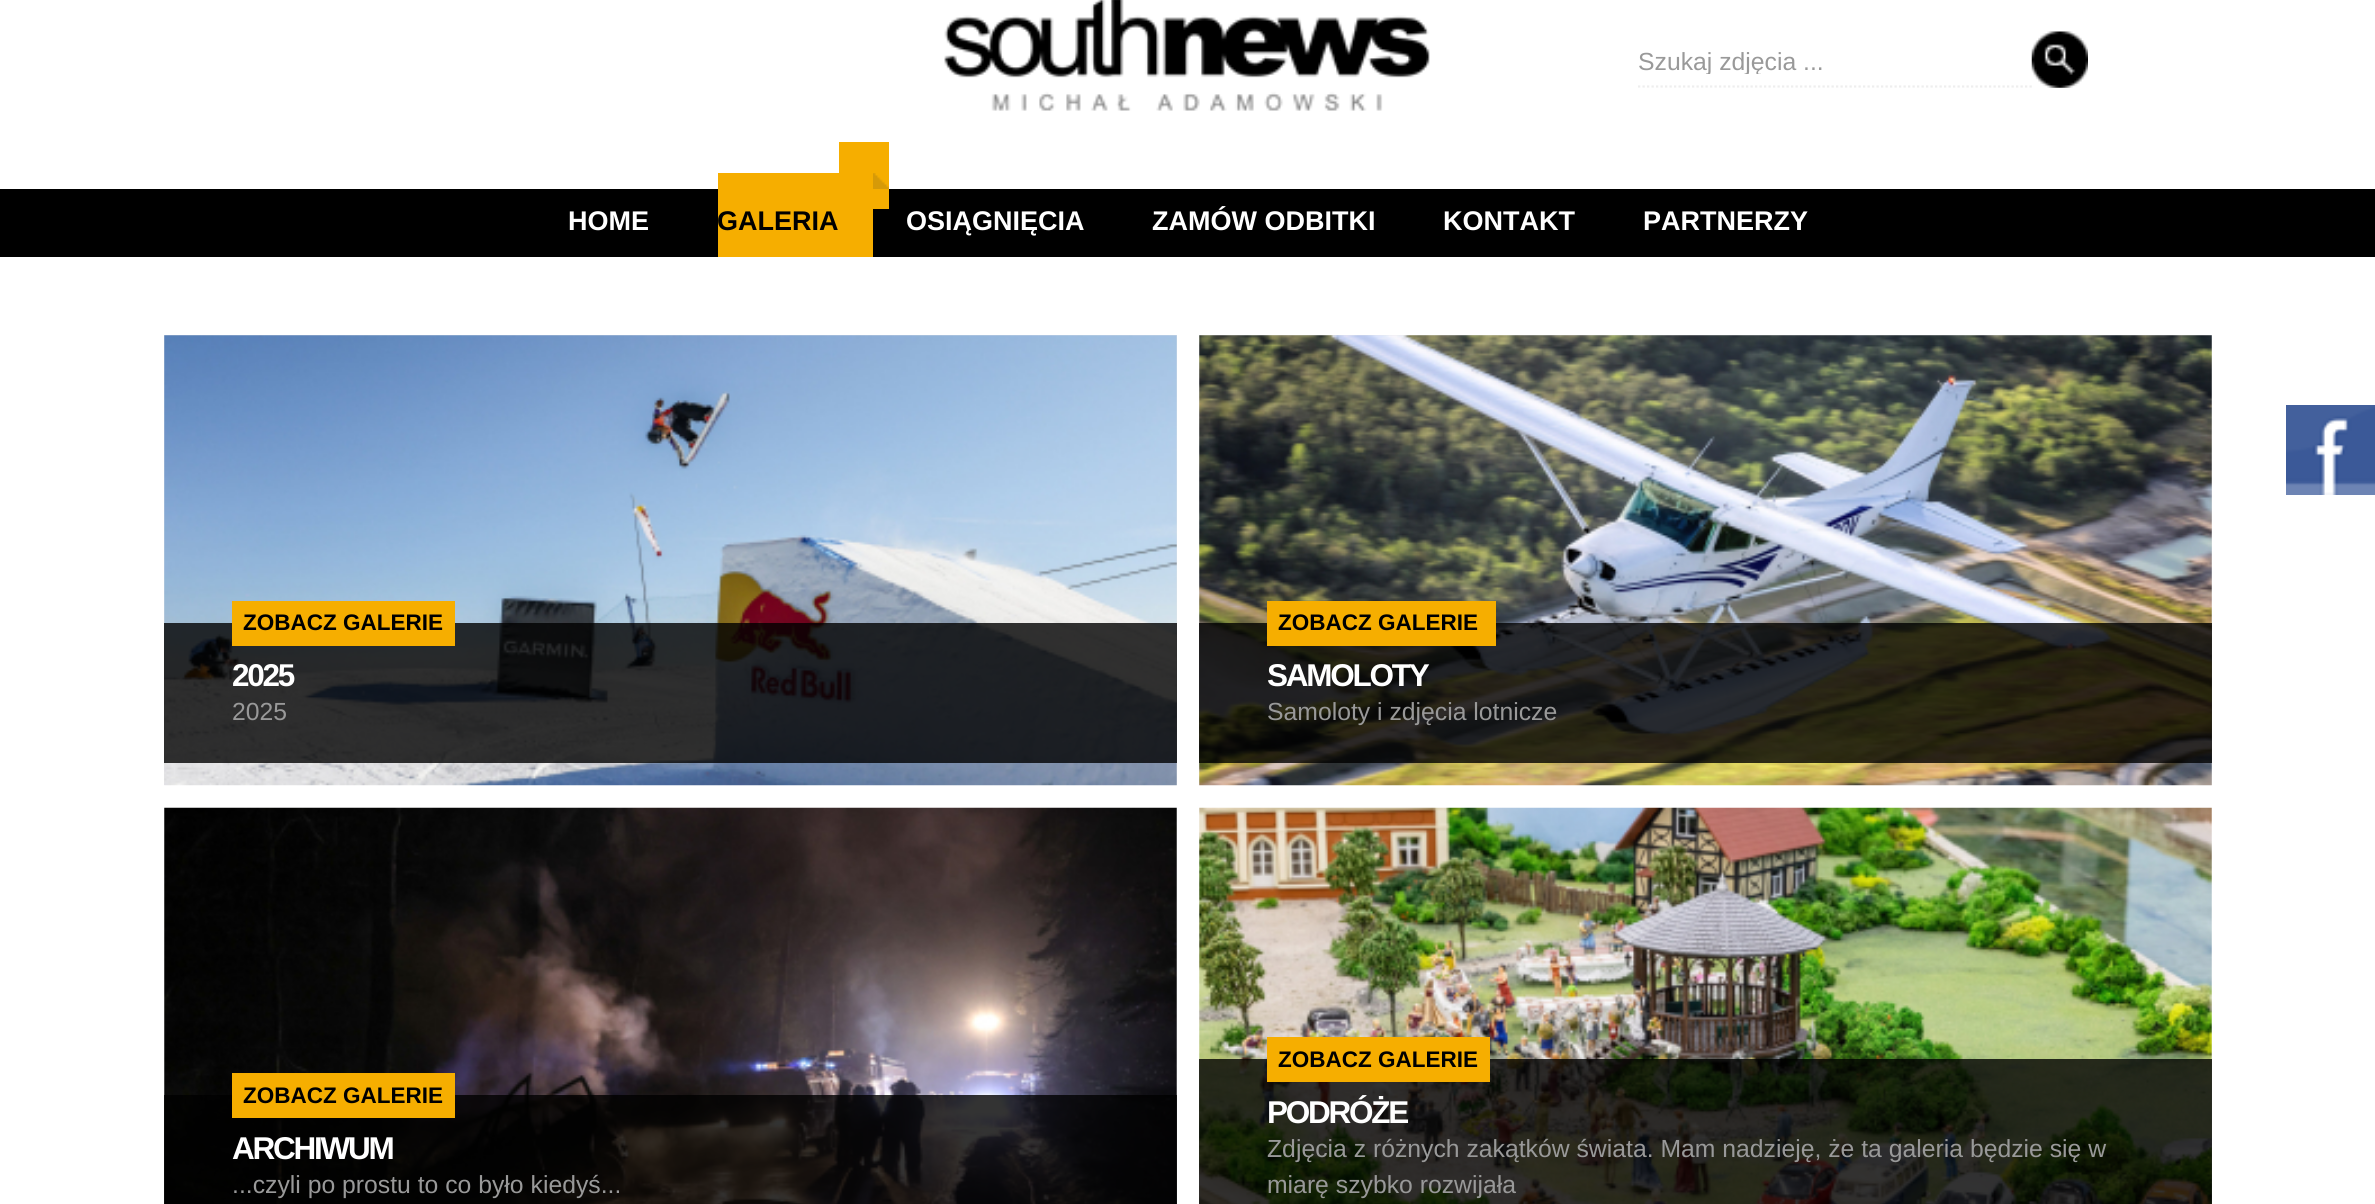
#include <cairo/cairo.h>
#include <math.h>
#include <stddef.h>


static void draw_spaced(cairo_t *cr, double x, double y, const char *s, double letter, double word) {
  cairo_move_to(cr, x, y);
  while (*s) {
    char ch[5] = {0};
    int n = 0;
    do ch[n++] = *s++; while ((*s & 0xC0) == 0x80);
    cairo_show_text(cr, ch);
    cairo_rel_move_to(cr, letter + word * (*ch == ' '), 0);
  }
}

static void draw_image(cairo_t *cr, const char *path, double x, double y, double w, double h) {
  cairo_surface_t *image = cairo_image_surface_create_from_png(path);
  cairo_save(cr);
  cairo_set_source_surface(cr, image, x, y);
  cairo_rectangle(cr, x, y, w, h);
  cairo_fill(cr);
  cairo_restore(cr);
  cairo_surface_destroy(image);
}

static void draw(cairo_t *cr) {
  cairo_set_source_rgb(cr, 1, 1, 1);
  cairo_paint(cr);
  draw_image(cr, "images/1.png", 944, 0, 486, 111);
  cairo_new_path(cr);
  cairo_move_to(cr, 1638, 86.5);
  cairo_line_to(cr, 2032, 86.5);
  cairo_set_source_rgb(cr, 238 / 255.0, 238 / 255.0, 238 / 255.0);
  cairo_set_line_width(cr, 2.2);
  cairo_set_dash(cr, (double[]){2.25, 2.25}, 2, 0);
  cairo_stroke(cr);
  draw_image(cr, "images/2.png", 2031, 31, 57, 57);
  cairo_set_source_rgb(cr, 0, 0, 0);
  cairo_rectangle(cr, 0, 189, 2375, 68);
  cairo_fill(cr);
  cairo_set_source_rgb(cr, 246 / 255.0, 174 / 255.0, 0);
  cairo_rectangle(cr, 839, 142, 50, 67);
  cairo_fill(cr);
  cairo_rectangle(cr, 718, 173, 155, 84);
  cairo_fill(cr);
  draw_image(cr, "images/3.png", 873, 173, 16, 16);
  cairo_set_source_rgb(cr, 229 / 255.0, 229 / 255.0, 229 / 255.0);
  cairo_rectangle(cr, 164, 335, 1013, 450);
  cairo_fill(cr);
  draw_image(cr, "images/4.png", 164, 335, 1013, 451);
  cairo_set_source_rgba(cr, 0, 0, 0, 0.8);
  cairo_rectangle(cr, 164, 623, 1013, 140);
  cairo_fill(cr);
  cairo_set_source_rgb(cr, 246 / 255.0, 174 / 255.0, 0);
  cairo_rectangle(cr, 232, 601, 223, 45);
  cairo_fill(cr);
  cairo_set_source_rgb(cr, 229 / 255.0, 229 / 255.0, 229 / 255.0);
  cairo_rectangle(cr, 1199, 335, 1013, 450);
  cairo_fill(cr);
  draw_image(cr, "images/5.png", 1199, 335, 1013, 451);
  cairo_set_source_rgba(cr, 0, 0, 0, 0.8);
  cairo_rectangle(cr, 1199, 623, 1013, 140);
  cairo_fill(cr);
  cairo_set_source_rgb(cr, 246 / 255.0, 174 / 255.0, 0);
  cairo_rectangle(cr, 1267, 601, 229, 45);
  cairo_fill(cr);
  draw_image(cr, "images/6.png", 164, 807, 1013, 397);
  cairo_set_source_rgba(cr, 0, 0, 0, 0.8);
  cairo_rectangle(cr, 164, 1095, 1013, 109);
  cairo_fill(cr);
  cairo_set_source_rgb(cr, 246 / 255.0, 174 / 255.0, 0);
  cairo_rectangle(cr, 232, 1073, 223, 45);
  cairo_fill(cr);
  draw_image(cr, "images/7.png", 1199, 807, 1013, 397);
  cairo_set_source_rgba(cr, 0, 0, 0, 0.8);
  cairo_rectangle(cr, 1199, 1059, 1013, 145);
  cairo_fill(cr);
  cairo_set_source_rgb(cr, 246 / 255.0, 174 / 255.0, 0);
  cairo_rectangle(cr, 1267, 1037, 223, 45);
  cairo_fill(cr);
  draw_image(cr, "images/8.png", 2286, 405, 89, 90);
  cairo_save(cr);
  cairo_rectangle(cr, 1638, 47, 394, 27);
  cairo_clip(cr);
  cairo_select_font_face(cr, "Liberation Sans", CAIRO_FONT_SLANT_NORMAL, CAIRO_FONT_WEIGHT_NORMAL);
  cairo_set_font_size(cr, 24.75);
  cairo_set_source_rgb(cr, 153 / 255.0, 153 / 255.0, 153 / 255.0);
  cairo_move_to(cr, 1638, 70);
  cairo_show_text(cr, "Szukaj zdjęcia ...");
  cairo_restore(cr);
  cairo_select_font_face(cr, "Liberation Sans", CAIRO_FONT_SLANT_NORMAL, CAIRO_FONT_WEIGHT_BOLD);
  cairo_set_font_size(cr, 27);
  cairo_set_source_rgb(cr, 1, 1, 1);
  cairo_move_to(cr, 568, 230);
  cairo_show_text(cr, "HOME");
  cairo_set_source_rgb(cr, 0, 0, 0);
  cairo_move_to(cr, 717, 230);
  cairo_show_text(cr, "GALERIA");
  cairo_set_source_rgb(cr, 1, 1, 1);
  cairo_move_to(cr, 906, 230);
  cairo_show_text(cr, "OSIĄGNIĘCIA");
  cairo_move_to(cr, 1152, 230);
  cairo_show_text(cr, "ZAMÓW ODBITKI");
  cairo_move_to(cr, 1443, 230);
  cairo_show_text(cr, "KONTAKT");
  cairo_move_to(cr, 1643, 230);
  cairo_show_text(cr, "PARTNERZY");
  cairo_set_font_size(cr, 22.5);
  cairo_set_source_rgb(cr, 0, 0, 0);
  cairo_move_to(cr, 243, 630);
  cairo_show_text(cr, "ZOBACZ GALERIE");
  cairo_set_font_size(cr, 31.5);
  cairo_set_source_rgb(cr, 1, 1, 1);
  draw_spaced(cr, 232, 686, "2025", -2.25, 0);
  cairo_select_font_face(cr, "Liberation Sans", CAIRO_FONT_SLANT_NORMAL, CAIRO_FONT_WEIGHT_NORMAL);
  cairo_set_font_size(cr, 24.75);
  cairo_set_source_rgb(cr, 153 / 255.0, 153 / 255.0, 153 / 255.0);
  cairo_move_to(cr, 232, 720);
  cairo_show_text(cr, "2025");
  cairo_select_font_face(cr, "Liberation Sans", CAIRO_FONT_SLANT_NORMAL, CAIRO_FONT_WEIGHT_BOLD);
  cairo_set_font_size(cr, 22.5);
  cairo_set_source_rgb(cr, 0, 0, 0);
  cairo_move_to(cr, 1278, 630);
  cairo_show_text(cr, "ZOBACZ GALERIE");
  cairo_set_font_size(cr, 31.5);
  cairo_set_source_rgb(cr, 1, 1, 1);
  draw_spaced(cr, 1267, 686, "SAMOLOTY", -2.25, 0);
  cairo_select_font_face(cr, "Liberation Sans", CAIRO_FONT_SLANT_NORMAL, CAIRO_FONT_WEIGHT_NORMAL);
  cairo_set_font_size(cr, 24.75);
  cairo_set_source_rgb(cr, 153 / 255.0, 153 / 255.0, 153 / 255.0);
  cairo_move_to(cr, 1267, 720);
  cairo_show_text(cr, "Samoloty i zdjęcia lotnicze");
  cairo_select_font_face(cr, "Liberation Sans", CAIRO_FONT_SLANT_NORMAL, CAIRO_FONT_WEIGHT_BOLD);
  cairo_set_font_size(cr, 22.5);
  cairo_set_source_rgb(cr, 0, 0, 0);
  cairo_move_to(cr, 243, 1103);
  cairo_show_text(cr, "ZOBACZ GALERIE");
  cairo_set_font_size(cr, 31.5);
  cairo_set_source_rgb(cr, 1, 1, 1);
  draw_spaced(cr, 232, 1159, "ARCHIWUM", -2.25, 0);
  cairo_select_font_face(cr, "Liberation Sans", CAIRO_FONT_SLANT_NORMAL, CAIRO_FONT_WEIGHT_NORMAL);
  cairo_set_font_size(cr, 24.75);
  cairo_set_source_rgb(cr, 153 / 255.0, 153 / 255.0, 153 / 255.0);
  cairo_move_to(cr, 232, 1193);
  cairo_show_text(cr, "...czyli po prostu to co było kiedyś...");
  cairo_select_font_face(cr, "Liberation Sans", CAIRO_FONT_SLANT_NORMAL, CAIRO_FONT_WEIGHT_BOLD);
  cairo_set_font_size(cr, 22.5);
  cairo_set_source_rgb(cr, 0, 0, 0);
  cairo_move_to(cr, 1278, 1067);
  cairo_show_text(cr, "ZOBACZ GALERIE");
  cairo_set_font_size(cr, 31.5);
  cairo_set_source_rgb(cr, 1, 1, 1);
  draw_spaced(cr, 1267, 1123, "PODRÓŻE", -2.25, 0);
  cairo_select_font_face(cr, "Liberation Sans", CAIRO_FONT_SLANT_NORMAL, CAIRO_FONT_WEIGHT_NORMAL);
  cairo_set_font_size(cr, 24.75);
  cairo_set_source_rgb(cr, 153 / 255.0, 153 / 255.0, 153 / 255.0);
  cairo_move_to(cr, 1267, 1157);
  cairo_show_text(cr, "Zdjęcia z różnych zakątków świata. Mam nadzieję, że ta galeria będzie się w");
  cairo_move_to(cr, 1267, 1193);
  cairo_show_text(cr, "miarę szybko rozwijała");
}

int main(void) {
  cairo_surface_t *surface = cairo_image_surface_create(CAIRO_FORMAT_RGB24, 2375, 1204);
  cairo_t *cr = cairo_create(surface);
  cairo_font_options_t *options = cairo_font_options_create();
  cairo_font_options_set_hint_metrics(options, CAIRO_HINT_METRICS_OFF);
  cairo_font_options_set_hint_style(options, CAIRO_HINT_STYLE_NONE);
  cairo_set_font_options(cr, options);
  cairo_set_miter_limit(cr, 4);
  draw(cr);
  cairo_surface_write_to_png(surface, "out.png");
  cairo_font_options_destroy(options);
  cairo_destroy(cr);
  cairo_surface_destroy(surface);
  return 0;
}
